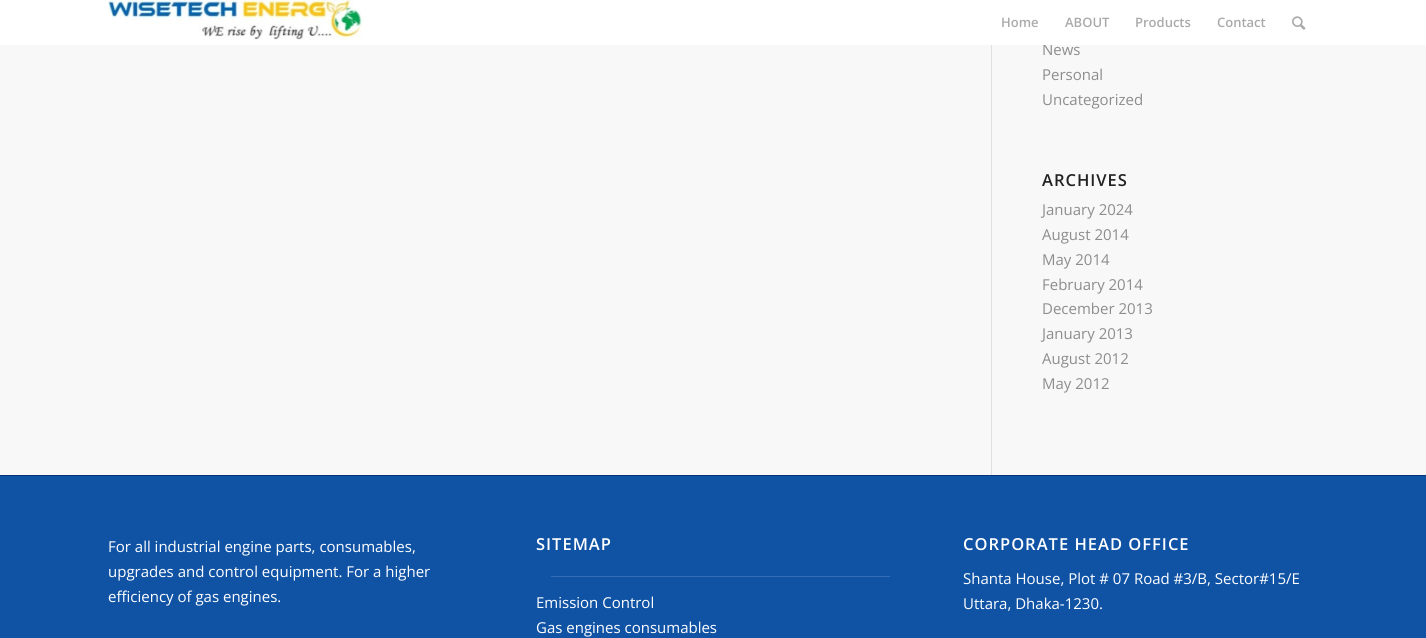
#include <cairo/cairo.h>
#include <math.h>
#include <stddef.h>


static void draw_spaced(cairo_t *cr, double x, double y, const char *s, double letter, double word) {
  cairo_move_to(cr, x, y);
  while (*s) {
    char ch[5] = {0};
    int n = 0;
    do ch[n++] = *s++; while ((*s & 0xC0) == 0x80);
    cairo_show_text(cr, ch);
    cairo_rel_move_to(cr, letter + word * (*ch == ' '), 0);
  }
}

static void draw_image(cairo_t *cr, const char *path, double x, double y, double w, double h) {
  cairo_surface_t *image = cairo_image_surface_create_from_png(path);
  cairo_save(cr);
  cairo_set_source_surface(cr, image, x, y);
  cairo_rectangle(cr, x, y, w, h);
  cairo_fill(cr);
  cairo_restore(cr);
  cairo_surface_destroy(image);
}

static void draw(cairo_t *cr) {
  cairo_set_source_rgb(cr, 248 / 255.0, 248 / 255.0, 248 / 255.0);
  cairo_paint(cr);
  cairo_set_source_rgb(cr, 225 / 255.0, 225 / 255.0, 225 / 255.0);
  cairo_rectangle(cr, 991, 45, 1, 430);
  cairo_fill(cr);
  cairo_set_source_rgb(cr, 16 / 255.0, 83 / 255.0, 165 / 255.0);
  cairo_rectangle(cr, 0, 476, 1426, 162);
  cairo_fill(cr);
  cairo_set_source_rgb(cr, 4 / 255.0, 54 / 255.0, 119 / 255.0);
  cairo_rectangle(cr, 0, 475, 1426, 1);
  cairo_fill(cr);
  cairo_set_source_rgb(cr, 52 / 255.0, 109 / 255.0, 179 / 255.0);
  cairo_rectangle(cr, 551, 576, 339, 1);
  cairo_fill(cr);
  cairo_select_font_face(cr, "Open Sans", CAIRO_FONT_SLANT_NORMAL, CAIRO_FONT_WEIGHT_NORMAL);
  cairo_set_font_size(cr, 15);
  cairo_set_source_rgb(cr, 141 / 255.0, 141 / 255.0, 141 / 255.0);
  cairo_move_to(cr, 1042, 55);
  cairo_show_text(cr, "News");
  cairo_set_source_rgb(cr, 1, 1, 1);
  cairo_rectangle(cr, 0, 0, 1426, 45);
  cairo_fill(cr);
  draw_image(cr, "images/2.png", 1292, 16, 14, 14);
  cairo_select_font_face(cr, "Open Sans SemiBold", CAIRO_FONT_SLANT_NORMAL, CAIRO_FONT_WEIGHT_NORMAL);
  cairo_set_font_size(cr, 13);
  cairo_set_source_rgb(cr, 170 / 255.0, 170 / 255.0, 170 / 255.0);
  cairo_move_to(cr, 1217, 27);
  cairo_show_text(cr, "Contact");
  cairo_move_to(cr, 1135, 27);
  cairo_show_text(cr, "Products");
  cairo_move_to(cr, 1065, 27);
  cairo_show_text(cr, "ABOUT");
  cairo_move_to(cr, 1001, 27);
  cairo_show_text(cr, "Home");
  draw_image(cr, "images/1.png", 108, 0, 255, 40);
  cairo_select_font_face(cr, "Open Sans", CAIRO_FONT_SLANT_NORMAL, CAIRO_FONT_WEIGHT_NORMAL);
  cairo_set_font_size(cr, 15);
  cairo_set_source_rgb(cr, 141 / 255.0, 141 / 255.0, 141 / 255.0);
  cairo_move_to(cr, 1042, 80);
  cairo_show_text(cr, "Personal");
  cairo_move_to(cr, 1042, 105);
  cairo_show_text(cr, "Uncategorized");
  cairo_select_font_face(cr, "Open Sans SemiBold", CAIRO_FONT_SLANT_NORMAL, CAIRO_FONT_WEIGHT_NORMAL);
  cairo_set_font_size(cr, 16.5);
  cairo_set_source_rgb(cr, 34 / 255.0, 34 / 255.0, 34 / 255.0);
  draw_spaced(cr, 1042, 186, "ARCHIVES", 1, 0);
  cairo_select_font_face(cr, "Open Sans", CAIRO_FONT_SLANT_NORMAL, CAIRO_FONT_WEIGHT_NORMAL);
  cairo_set_font_size(cr, 15);
  cairo_set_source_rgb(cr, 141 / 255.0, 141 / 255.0, 141 / 255.0);
  cairo_move_to(cr, 1042, 215);
  cairo_show_text(cr, "January 2024");
  cairo_move_to(cr, 1042, 240);
  cairo_show_text(cr, "August 2014");
  cairo_move_to(cr, 1042, 265);
  cairo_show_text(cr, "May 2014");
  cairo_move_to(cr, 1042, 290);
  cairo_show_text(cr, "February 2014");
  cairo_move_to(cr, 1042, 314);
  cairo_show_text(cr, "December 2013");
  cairo_move_to(cr, 1042, 339);
  cairo_show_text(cr, "January 2013");
  cairo_move_to(cr, 1042, 364);
  cairo_show_text(cr, "August 2012");
  cairo_move_to(cr, 1042, 389);
  cairo_show_text(cr, "May 2012");
  cairo_set_source_rgb(cr, 1, 1, 1);
  cairo_move_to(cr, 108, 552);
  cairo_show_text(cr, "For all industrial engine parts, consumables,");
  cairo_move_to(cr, 108, 577);
  cairo_show_text(cr, "upgrades and control equipment. For a higher");
  cairo_move_to(cr, 108, 602);
  cairo_show_text(cr, "efficiency of gas engines.");
  cairo_select_font_face(cr, "Open Sans SemiBold", CAIRO_FONT_SLANT_NORMAL, CAIRO_FONT_WEIGHT_NORMAL);
  cairo_set_font_size(cr, 16.5);
  draw_spaced(cr, 536, 550, "SITEMAP", 1, 0);
  cairo_select_font_face(cr, "Open Sans", CAIRO_FONT_SLANT_NORMAL, CAIRO_FONT_WEIGHT_NORMAL);
  cairo_set_font_size(cr, 15);
  cairo_move_to(cr, 536, 608);
  cairo_show_text(cr, "Emission Control");
  cairo_move_to(cr, 536, 633);
  cairo_show_text(cr, "Gas engines consumables");
  cairo_select_font_face(cr, "Open Sans SemiBold", CAIRO_FONT_SLANT_NORMAL, CAIRO_FONT_WEIGHT_NORMAL);
  cairo_set_font_size(cr, 16.5);
  draw_spaced(cr, 963, 550, "CORPORATE HEAD OFFICE", 1, 0);
  cairo_select_font_face(cr, "Open Sans", CAIRO_FONT_SLANT_NORMAL, CAIRO_FONT_WEIGHT_NORMAL);
  cairo_set_font_size(cr, 15);
  cairo_move_to(cr, 963, 584);
  cairo_show_text(cr, "Shanta House, Plot # 07 Road #3/B, Sector#15/E");
  cairo_move_to(cr, 963, 609);
  cairo_show_text(cr, "Uttara, Dhaka-1230.");
}

int main(void) {
  cairo_surface_t *surface = cairo_image_surface_create(CAIRO_FORMAT_RGB24, 1426, 638);
  cairo_t *cr = cairo_create(surface);
  cairo_font_options_t *options = cairo_font_options_create();
  cairo_font_options_set_hint_metrics(options, CAIRO_HINT_METRICS_OFF);
  cairo_font_options_set_hint_style(options, CAIRO_HINT_STYLE_NONE);
  cairo_set_font_options(cr, options);
  cairo_set_miter_limit(cr, 4);
  draw(cr);
  cairo_surface_write_to_png(surface, "out.png");
  cairo_font_options_destroy(options);
  cairo_destroy(cr);
  cairo_surface_destroy(surface);
  return 0;
}
